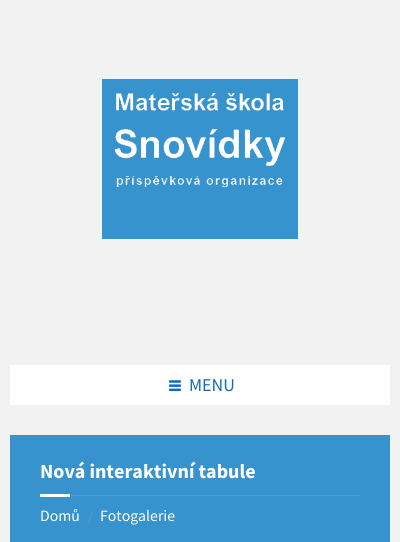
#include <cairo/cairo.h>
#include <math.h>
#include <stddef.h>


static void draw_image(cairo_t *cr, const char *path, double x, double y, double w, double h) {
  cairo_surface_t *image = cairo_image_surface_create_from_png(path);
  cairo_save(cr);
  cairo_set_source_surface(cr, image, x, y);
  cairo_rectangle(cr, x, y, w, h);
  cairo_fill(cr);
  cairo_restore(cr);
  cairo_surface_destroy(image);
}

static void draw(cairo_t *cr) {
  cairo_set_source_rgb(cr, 242 / 255.0, 242 / 255.0, 242 / 255.0);
  cairo_paint(cr);
  draw_image(cr, "images/1.png", 101, 78, 198, 162);
  cairo_set_source_rgb(cr, 1, 1, 1);
  cairo_rectangle(cr, 10, 365, 380, 40);
  cairo_fill(cr);
  draw_image(cr, "images/2.png", 169, 380, 12, 12);
  cairo_set_source_rgb(cr, 54 / 255.0, 147 / 255.0, 206 / 255.0);
  cairo_rectangle(cr, 10, 435, 380, 107);
  cairo_fill(cr);
  cairo_set_source_rgb(cr, 74 / 255.0, 158 / 255.0, 211 / 255.0);
  cairo_rectangle(cr, 70, 495, 290, 1);
  cairo_fill(cr);
  cairo_set_source_rgb(cr, 1, 1, 1);
  cairo_rectangle(cr, 40, 494, 30, 3);
  cairo_fill(cr);
  cairo_select_font_face(cr, "Source Sans Pro", CAIRO_FONT_SLANT_NORMAL, CAIRO_FONT_WEIGHT_NORMAL);
  cairo_set_font_size(cr, 18);
  cairo_set_source_rgb(cr, 13 / 255.0, 106 / 255.0, 198 / 255.0);
  cairo_move_to(cr, 189, 391);
  cairo_show_text(cr, "MENU");
  cairo_select_font_face(cr, "Source Sans Pro", CAIRO_FONT_SLANT_NORMAL, CAIRO_FONT_WEIGHT_BOLD);
  cairo_set_font_size(cr, 20);
  cairo_set_source_rgb(cr, 1, 1, 1);
  cairo_move_to(cr, 40, 478);
  cairo_show_text(cr, "Nová interaktivní tabule");
  cairo_select_font_face(cr, "Source Sans Pro", CAIRO_FONT_SLANT_NORMAL, CAIRO_FONT_WEIGHT_NORMAL);
  cairo_set_font_size(cr, 15.75);
  cairo_move_to(cr, 40, 521);
  cairo_show_text(cr, "Domů");
  cairo_set_font_size(cr, 12);
  cairo_set_source_rgb(cr, 138 / 255.0, 148 / 255.0, 155 / 255.0);
  cairo_move_to(cr, 88, 521);
  cairo_show_text(cr, "/");
  cairo_set_font_size(cr, 15.75);
  cairo_set_source_rgb(cr, 1, 1, 1);
  cairo_move_to(cr, 100, 521);
  cairo_show_text(cr, "Fotogalerie");
}

int main(void) {
  cairo_surface_t *surface = cairo_image_surface_create(CAIRO_FORMAT_RGB24, 400, 542);
  cairo_t *cr = cairo_create(surface);
  cairo_font_options_t *options = cairo_font_options_create();
  cairo_font_options_set_hint_metrics(options, CAIRO_HINT_METRICS_OFF);
  cairo_font_options_set_hint_style(options, CAIRO_HINT_STYLE_NONE);
  cairo_set_font_options(cr, options);
  cairo_set_miter_limit(cr, 4);
  draw(cr);
  cairo_surface_write_to_png(surface, "out.png");
  cairo_font_options_destroy(options);
  cairo_destroy(cr);
  cairo_surface_destroy(surface);
  return 0;
}
